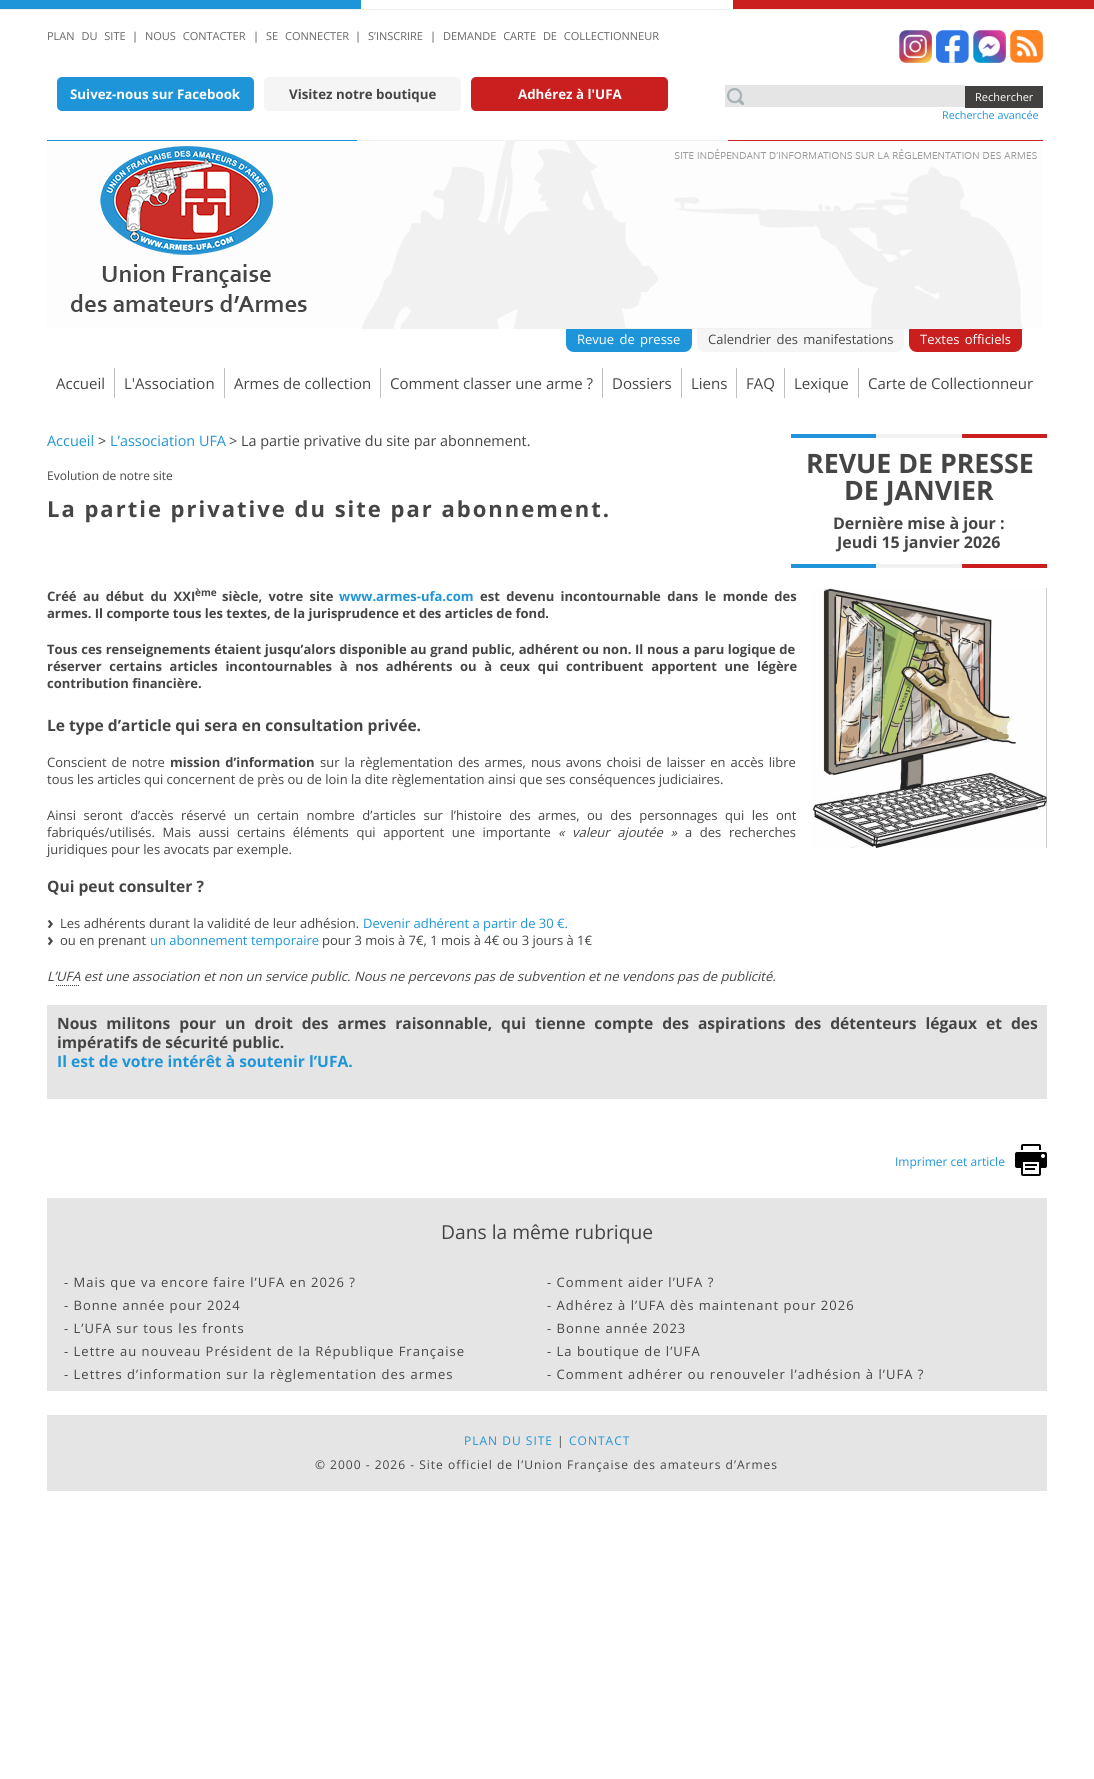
#include <cairo/cairo.h>
#include <math.h>
#include <stddef.h>


static void draw_spaced(cairo_t *cr, double x, double y, const char *s, double letter, double word) {
  cairo_move_to(cr, x, y);
  while (*s) {
    char ch[5] = {0};
    int n = 0;
    do ch[n++] = *s++; while ((*s & 0xC0) == 0x80);
    cairo_show_text(cr, ch);
    cairo_rel_move_to(cr, letter + word * (*ch == ' '), 0);
  }
}

static void rounded_rect(cairo_t *cr, double x, double y, double w, double h, double r) {
  cairo_new_sub_path(cr);
  cairo_arc(cr, x + w - r, y + h - r, r, 0, M_PI / 2);
  cairo_arc(cr, x + r, y + h - r, r, M_PI / 2, M_PI);
  cairo_arc(cr, x + r, y + r, r, M_PI, 1.5 * M_PI);
  cairo_arc(cr, x + w - r, y + r, r, 1.5 * M_PI, 2 * M_PI);
  cairo_close_path(cr);
}

static void draw_image(cairo_t *cr, const char *path, double x, double y, double w, double h) {
  cairo_surface_t *image = cairo_image_surface_create_from_png(path);
  cairo_save(cr);
  cairo_set_source_surface(cr, image, x, y);
  cairo_rectangle(cr, x, y, w, h);
  cairo_fill(cr);
  cairo_restore(cr);
  cairo_surface_destroy(image);
}

static void draw(cairo_t *cr) {
  cairo_set_source_rgb(cr, 1, 1, 1);
  cairo_paint(cr);
  cairo_set_source_rgb(cr, 239 / 255.0, 239 / 255.0, 239 / 255.0);
  cairo_rectangle(cr, 0, 9, 1094, 1);
  cairo_fill(cr);
  cairo_set_source_rgb(cr, 31 / 255.0, 149 / 255.0, 217 / 255.0);
  cairo_rectangle(cr, 0, 0, 361, 9);
  cairo_fill(cr);
  cairo_set_source_rgb(cr, 201 / 255.0, 31 / 255.0, 31 / 255.0);
  cairo_rectangle(cr, 733, 0, 361, 9);
  cairo_fill(cr);
  draw_image(cr, "images/1.png", 899, 30, 33, 33);
  draw_image(cr, "images/2.png", 936, 30, 33, 33);
  draw_image(cr, "images/3.png", 973, 30, 33, 33);
  draw_image(cr, "images/4.png", 1010, 30, 33, 33);
  cairo_set_source_rgb(cr, 31 / 255.0, 149 / 255.0, 217 / 255.0);
  rounded_rect(cr, 57, 77, 197, 34, 5);
  cairo_fill(cr);
  cairo_set_source_rgb(cr, 245 / 255.0, 245 / 255.0, 245 / 255.0);
  rounded_rect(cr, 264, 77, 197, 34, 5);
  cairo_fill(cr);
  cairo_set_source_rgb(cr, 201 / 255.0, 31 / 255.0, 31 / 255.0);
  rounded_rect(cr, 471, 77, 197, 34, 5);
  cairo_fill(cr);
  cairo_set_source_rgb(cr, 230 / 255.0, 229 / 255.0, 229 / 255.0);
  cairo_rectangle(cr, 725, 85, 240, 22);
  cairo_fill(cr);
  draw_image(cr, "images/5.png", 727, 88, 17, 17);
  cairo_set_source_rgb(cr, 66 / 255.0, 65 / 255.0, 64 / 255.0);
  cairo_rectangle(cr, 965, 86, 78, 22);
  cairo_fill(cr);
  draw_image(cr, "images/6.png", 47, 140, 996, 189);
  cairo_set_source_rgb(cr, 31 / 255.0, 149 / 255.0, 217 / 255.0);
  cairo_new_path(cr);
  cairo_move_to(cr, 566, 329);
  cairo_line_to(cr, 692, 329);
  cairo_line_to(cr, 692, 344);
  cairo_curve_to(cr, 692, 348.5, 688.5, 352, 684, 352);
  cairo_line_to(cr, 574, 352);
  cairo_curve_to(cr, 569.5, 352, 566, 348.5, 566, 344);
  cairo_close_path(cr);
  cairo_fill(cr);
  cairo_set_source_rgb(cr, 245 / 255.0, 245 / 255.0, 245 / 255.0);
  cairo_new_path(cr);
  cairo_move_to(cr, 697, 329);
  cairo_line_to(cr, 904, 329);
  cairo_line_to(cr, 904, 344);
  cairo_curve_to(cr, 904, 348.5, 900.5, 352, 896, 352);
  cairo_line_to(cr, 705, 352);
  cairo_curve_to(cr, 700.5, 352, 697, 348.5, 697, 344);
  cairo_close_path(cr);
  cairo_fill(cr);
  cairo_set_source_rgb(cr, 201 / 255.0, 31 / 255.0, 31 / 255.0);
  cairo_new_path(cr);
  cairo_move_to(cr, 909, 329);
  cairo_line_to(cr, 1022, 329);
  cairo_line_to(cr, 1022, 344);
  cairo_curve_to(cr, 1022, 348.5, 1018.5, 352, 1014, 352);
  cairo_line_to(cr, 917, 352);
  cairo_curve_to(cr, 912.5, 352, 909, 348.5, 909, 344);
  cairo_close_path(cr);
  cairo_fill(cr);
  cairo_set_source_rgb(cr, 192 / 255.0, 192 / 255.0, 192 / 255.0);
  cairo_rectangle(cr, 114, 368, 1, 30);
  cairo_fill(cr);
  cairo_rectangle(cr, 224, 368, 1, 30);
  cairo_fill(cr);
  cairo_rectangle(cr, 380, 368, 1, 30);
  cairo_fill(cr);
  cairo_rectangle(cr, 602, 368, 1, 30);
  cairo_fill(cr);
  cairo_rectangle(cr, 681, 368, 1, 30);
  cairo_fill(cr);
  cairo_rectangle(cr, 736, 368, 1, 30);
  cairo_fill(cr);
  cairo_rectangle(cr, 784, 368, 1, 30);
  cairo_fill(cr);
  cairo_rectangle(cr, 858, 368, 1, 30);
  cairo_fill(cr);
  draw_image(cr, "images/7.png", 791, 434, 256, 4);
  draw_image(cr, "images/7.png", 791, 564, 256, 4);
  draw_image(cr, "images/8.png", 811, 588, 236, 260);
  cairo_new_path(cr);
  cairo_move_to(cr, 56, 985.5);
  cairo_line_to(cr, 80, 985.5);
  cairo_set_source_rgb(cr, 68 / 255.0, 68 / 255.0, 68 / 255.0);
  cairo_set_line_width(cr, 1);
  cairo_set_dash(cr, (double[]){1, 1}, 2, 0);
  cairo_stroke(cr);
  cairo_set_source_rgb(cr, 230 / 255.0, 229 / 255.0, 229 / 255.0);
  cairo_rectangle(cr, 47, 1005, 1000, 94);
  cairo_fill(cr);
  draw_image(cr, "images/9.png", 1015, 1144, 32, 32);
  cairo_rectangle(cr, 47, 1198, 1000, 193);
  cairo_fill(cr);
  cairo_rectangle(cr, 47, 1415, 1000, 76);
  cairo_fill(cr);
  cairo_select_font_face(cr, "Open Sans", CAIRO_FONT_SLANT_NORMAL, CAIRO_FONT_WEIGHT_NORMAL);
  cairo_set_font_size(cr, 11);
  cairo_set_source_rgb(cr, 102 / 255.0, 102 / 255.0, 102 / 255.0);
  draw_spaced(cr, 47, 40, "PLAN DU SITE", 0, 4);
  cairo_set_source_rgb(cr, 69 / 255.0, 69 / 255.0, 69 / 255.0);
  cairo_move_to(cr, 132, 40);
  cairo_show_text(cr, "|");
  cairo_set_source_rgb(cr, 102 / 255.0, 102 / 255.0, 102 / 255.0);
  draw_spaced(cr, 145, 40, "NOUS CONTACTER", 0, 4);
  cairo_set_source_rgb(cr, 69 / 255.0, 69 / 255.0, 69 / 255.0);
  cairo_move_to(cr, 253, 40);
  cairo_show_text(cr, "|");
  cairo_set_source_rgb(cr, 102 / 255.0, 102 / 255.0, 102 / 255.0);
  draw_spaced(cr, 266, 40, "SE CONNECTER", 0, 4);
  cairo_set_source_rgb(cr, 69 / 255.0, 69 / 255.0, 69 / 255.0);
  cairo_move_to(cr, 355, 40);
  cairo_show_text(cr, "|");
  cairo_set_source_rgb(cr, 102 / 255.0, 102 / 255.0, 102 / 255.0);
  cairo_move_to(cr, 368, 40);
  cairo_show_text(cr, "S’INSCRIRE");
  cairo_set_source_rgb(cr, 69 / 255.0, 69 / 255.0, 69 / 255.0);
  cairo_move_to(cr, 430, 40);
  cairo_show_text(cr, "|");
  cairo_set_source_rgb(cr, 102 / 255.0, 102 / 255.0, 102 / 255.0);
  draw_spaced(cr, 443, 40, "DEMANDE CARTE DE COLLECTIONNEUR", 0, 4);
  cairo_select_font_face(cr, "Open Sans", CAIRO_FONT_SLANT_NORMAL, CAIRO_FONT_WEIGHT_BOLD);
  cairo_set_font_size(cr, 13.3);
  cairo_set_source_rgb(cr, 1, 1, 1);
  cairo_move_to(cr, 70, 99);
  cairo_show_text(cr, "Suivez-nous sur Facebook");
  cairo_set_source_rgb(cr, 69 / 255.0, 69 / 255.0, 69 / 255.0);
  cairo_move_to(cr, 289, 99);
  cairo_show_text(cr, "Visitez notre boutique");
  cairo_set_source_rgb(cr, 1, 1, 1);
  cairo_move_to(cr, 518, 99);
  cairo_show_text(cr, "Adhérez à l'UFA");
  cairo_select_font_face(cr, "Open Sans", CAIRO_FONT_SLANT_NORMAL, CAIRO_FONT_WEIGHT_NORMAL);
  cairo_set_font_size(cr, 11);
  cairo_move_to(cr, 975, 101);
  cairo_show_text(cr, "Rechercher");
  cairo_set_font_size(cr, 10.75);
  cairo_set_source_rgb(cr, 31 / 255.0, 149 / 255.0, 217 / 255.0);
  cairo_move_to(cr, 942, 119);
  cairo_show_text(cr, "Recherche avancée");
  cairo_set_font_size(cr, 13);
  cairo_set_source_rgb(cr, 1, 1, 1);
  draw_spaced(cr, 577, 344, "Revue de presse", 0, 2);
  cairo_set_source_rgb(cr, 69 / 255.0, 69 / 255.0, 69 / 255.0);
  draw_spaced(cr, 708, 344, "Calendrier des manifestations", 0, 2);
  cairo_set_source_rgb(cr, 1, 1, 1);
  draw_spaced(cr, 920, 344, "Textes officiels", 0, 2);
  cairo_set_font_size(cr, 15);
  cairo_set_source_rgb(cr, 69 / 255.0, 69 / 255.0, 69 / 255.0);
  cairo_move_to(cr, 56, 389);
  cairo_show_text(cr, "Accueil");
  cairo_move_to(cr, 124, 389);
  cairo_show_text(cr, "L'Association");
  cairo_move_to(cr, 234, 389);
  cairo_show_text(cr, "Armes de collection");
  cairo_move_to(cr, 390, 389);
  cairo_show_text(cr, "Comment classer une arme ?");
  cairo_move_to(cr, 612, 389);
  cairo_show_text(cr, "Dossiers");
  cairo_move_to(cr, 691, 389);
  cairo_show_text(cr, "Liens");
  cairo_move_to(cr, 746, 389);
  cairo_show_text(cr, "FAQ");
  cairo_move_to(cr, 794, 389);
  cairo_show_text(cr, "Lexique");
  cairo_move_to(cr, 868, 389);
  cairo_show_text(cr, "Carte de Collectionneur");
  cairo_set_font_size(cr, 14.4);
  cairo_set_source_rgb(cr, 31 / 255.0, 149 / 255.0, 217 / 255.0);
  cairo_move_to(cr, 47, 446);
  cairo_show_text(cr, "Accueil");
  cairo_set_source_rgb(cr, 69 / 255.0, 69 / 255.0, 69 / 255.0);
  cairo_move_to(cr, 98, 446);
  cairo_show_text(cr, ">");
  cairo_set_source_rgb(cr, 31 / 255.0, 149 / 255.0, 217 / 255.0);
  cairo_move_to(cr, 110, 446);
  cairo_show_text(cr, "L’association UFA");
  cairo_set_source_rgb(cr, 69 / 255.0, 69 / 255.0, 69 / 255.0);
  cairo_move_to(cr, 229, 446);
  cairo_show_text(cr, "> La partie privative du site par abonnement.");
  cairo_set_font_size(cr, 12);
  cairo_move_to(cr, 47, 480);
  cairo_show_text(cr, "Evolution de notre site");
  cairo_select_font_face(cr, "Open Sans", CAIRO_FONT_SLANT_NORMAL, CAIRO_FONT_WEIGHT_BOLD);
  cairo_set_font_size(cr, 22);
  draw_spaced(cr, 47, 517, "La partie privative du site par abonnement.", 2, 0);
  cairo_set_font_size(cr, 26.75);
  cairo_move_to(cr, 806, 473);
  cairo_show_text(cr, "REVUE DE PRESSE");
  cairo_move_to(cr, 844, 500);
  cairo_show_text(cr, "DE JANVIER");
  cairo_set_font_size(cr, 16);
  cairo_move_to(cr, 833, 529);
  cairo_show_text(cr, "Dernière mise à jour :");
  cairo_move_to(cr, 837, 548);
  cairo_show_text(cr, "Jeudi 15 janvier 2026");
  cairo_set_font_size(cr, 13);
  draw_spaced(cr, 47, 601, "Créé au début du XXI", 0, 3);
  cairo_set_font_size(cr, 10);
  cairo_move_to(cr, 195, 596);
  cairo_show_text(cr, "ème");
  cairo_set_font_size(cr, 13);
  draw_spaced(cr, 222, 601, "siècle, votre site", 0, 3);
  cairo_set_source_rgb(cr, 31 / 255.0, 149 / 255.0, 217 / 255.0);
  cairo_move_to(cr, 339, 601);
  cairo_show_text(cr, "www.armes-ufa.com");
  cairo_set_source_rgb(cr, 69 / 255.0, 69 / 255.0, 69 / 255.0);
  draw_spaced(cr, 480, 601, "est devenu incontournable dans le monde des", 0, 3);
  cairo_move_to(cr, 47, 618);
  cairo_show_text(cr, "armes. Il comporte tous les textes, de la jurisprudence et des articles de fond.");
  draw_spaced(cr, 47, 654, "Tous ces renseignements étaient jusqu’alors disponible au grand public, adhérent ou non. Il nous a paru logique de", 0, 0.25);
  draw_spaced(cr, 47, 671, "réserver certains articles incontournables à nos adhérents ou à ceux qui contribuent apportent une légère", 0, 4.25);
  cairo_move_to(cr, 47, 688);
  cairo_show_text(cr, "contribution financière.");
  cairo_set_font_size(cr, 15.6);
  cairo_move_to(cr, 47, 731);
  cairo_show_text(cr, "Le type d’article qui sera en consultation privée.");
  cairo_select_font_face(cr, "Open Sans", CAIRO_FONT_SLANT_NORMAL, CAIRO_FONT_WEIGHT_NORMAL);
  cairo_set_font_size(cr, 13);
  draw_spaced(cr, 47, 767, "Conscient de notre", 0, 1.6);
  cairo_select_font_face(cr, "Open Sans", CAIRO_FONT_SLANT_NORMAL, CAIRO_FONT_WEIGHT_BOLD);
  draw_spaced(cr, 170, 767, "mission d’information", 0, 1.6);
  cairo_select_font_face(cr, "Open Sans", CAIRO_FONT_SLANT_NORMAL, CAIRO_FONT_WEIGHT_NORMAL);
  draw_spaced(cr, 320, 767, "sur la règlementation des armes, nous avons choisi de laisser en accès libre", 0, 1.6);
  cairo_move_to(cr, 47, 784);
  cairo_show_text(cr, "tous les articles qui concernent de près ou de loin la dite règlementation ainsi que ses conséquences judiciaires.");
  draw_spaced(cr, 47, 820, "Ainsi seront d’accès réservé un certain nombre d’articles sur l’histoire des armes, ou des personnages qui les ont", 0, 4.1);
  draw_spaced(cr, 47, 837, "fabriqués/utilisés. Mais aussi certains éléments qui apportent une importante", 0, 4.25);
  cairo_select_font_face(cr, "Open Sans", CAIRO_FONT_SLANT_ITALIC, CAIRO_FONT_WEIGHT_NORMAL);
  draw_spaced(cr, 558, 837, "« valeur ajoutée »", 0, 4.25);
  cairo_select_font_face(cr, "Open Sans", CAIRO_FONT_SLANT_NORMAL, CAIRO_FONT_WEIGHT_NORMAL);
  draw_spaced(cr, 685, 837, "a des recherches", 0, 4.25);
  cairo_move_to(cr, 47, 854);
  cairo_show_text(cr, "juridiques pour les avocats par exemple.");
  cairo_select_font_face(cr, "Open Sans", CAIRO_FONT_SLANT_NORMAL, CAIRO_FONT_WEIGHT_BOLD);
  cairo_set_font_size(cr, 15.6);
  cairo_move_to(cr, 47, 892);
  cairo_show_text(cr, "Qui peut consulter ?");
  cairo_set_font_size(cr, 18);
  cairo_move_to(cr, 47, 929);
  cairo_show_text(cr, "›");
  cairo_select_font_face(cr, "Open Sans", CAIRO_FONT_SLANT_NORMAL, CAIRO_FONT_WEIGHT_NORMAL);
  cairo_set_font_size(cr, 13);
  cairo_move_to(cr, 60, 928);
  cairo_show_text(cr, "Les adhérents durant la validité de leur adhésion.");
  cairo_set_source_rgb(cr, 31 / 255.0, 149 / 255.0, 217 / 255.0);
  cairo_move_to(cr, 363, 928);
  cairo_show_text(cr, "Devenir adhérent a partir de 30 €.");
  cairo_select_font_face(cr, "Open Sans", CAIRO_FONT_SLANT_NORMAL, CAIRO_FONT_WEIGHT_BOLD);
  cairo_set_font_size(cr, 18);
  cairo_set_source_rgb(cr, 69 / 255.0, 69 / 255.0, 69 / 255.0);
  cairo_move_to(cr, 47, 946);
  cairo_show_text(cr, "›");
  cairo_select_font_face(cr, "Open Sans", CAIRO_FONT_SLANT_NORMAL, CAIRO_FONT_WEIGHT_NORMAL);
  cairo_set_font_size(cr, 13);
  cairo_move_to(cr, 60, 945);
  cairo_show_text(cr, "ou en prenant");
  cairo_set_source_rgb(cr, 31 / 255.0, 149 / 255.0, 217 / 255.0);
  cairo_move_to(cr, 150, 945);
  cairo_show_text(cr, "un abonnement temporaire");
  cairo_set_source_rgb(cr, 69 / 255.0, 69 / 255.0, 69 / 255.0);
  cairo_move_to(cr, 322, 945);
  cairo_show_text(cr, "pour 3 mois à 7€, 1 mois à 4€ ou 3 jours à 1€");
  cairo_select_font_face(cr, "Open Sans", CAIRO_FONT_SLANT_ITALIC, CAIRO_FONT_WEIGHT_NORMAL);
  cairo_move_to(cr, 47, 981);
  cairo_show_text(cr, "L’UFA est une association et non un service public. Nous ne percevons pas de subvention et ne vendons pas de publicité.");
  cairo_select_font_face(cr, "Open Sans", CAIRO_FONT_SLANT_NORMAL, CAIRO_FONT_WEIGHT_BOLD);
  cairo_set_font_size(cr, 15.6);
  draw_spaced(cr, 57, 1029, "Nous militons pour un droit des armes raisonnable, qui tienne compte des aspirations des détenteurs légaux et des", 0, 4.9);
  cairo_move_to(cr, 57, 1048);
  cairo_show_text(cr, "impératifs de sécurité public.");
  cairo_set_source_rgb(cr, 31 / 255.0, 149 / 255.0, 217 / 255.0);
  cairo_move_to(cr, 57, 1067);
  cairo_show_text(cr, "Il est de votre intérêt à soutenir l’UFA.");
  cairo_select_font_face(cr, "Open Sans", CAIRO_FONT_SLANT_NORMAL, CAIRO_FONT_WEIGHT_NORMAL);
  cairo_set_font_size(cr, 12);
  cairo_move_to(cr, 895, 1166);
  cairo_show_text(cr, "Imprimer cet article");
  cairo_set_font_size(cr, 19.25);
  cairo_set_source_rgb(cr, 69 / 255.0, 69 / 255.0, 69 / 255.0);
  cairo_move_to(cr, 441, 1239);
  cairo_show_text(cr, "Dans la même rubrique");
  cairo_set_font_size(cr, 13);
  draw_spaced(cr, 64, 1287, "- Mais que va encore faire l’UFA en 2026 ?", 1, 0);
  draw_spaced(cr, 547, 1287, "- Comment aider l’UFA ?", 1, 0);
  draw_spaced(cr, 64, 1310, "- Bonne année pour 2024", 1, 0);
  draw_spaced(cr, 547, 1310, "- Adhérez à l’UFA dès maintenant pour 2026", 1, 0);
  draw_spaced(cr, 64, 1333, "- L’UFA sur tous les fronts", 1, 0);
  draw_spaced(cr, 547, 1333, "- Bonne année 2023", 1, 0);
  draw_spaced(cr, 64, 1356, "- Lettre au nouveau Président de la République Française", 1, 0);
  draw_spaced(cr, 547, 1356, "- La boutique de l’UFA", 1, 0);
  draw_spaced(cr, 64, 1379, "- Lettres d’information sur la règlementation des armes", 1, 0);
  draw_spaced(cr, 547, 1379, "- Comment adhérer ou renouveler l’adhésion à l’UFA ?", 1, 0);
  cairo_set_font_size(cr, 12);
  cairo_set_source_rgb(cr, 31 / 255.0, 149 / 255.0, 217 / 255.0);
  draw_spaced(cr, 464, 1445, "PLAN DU SITE", 1, 0);
  cairo_set_source_rgb(cr, 69 / 255.0, 69 / 255.0, 69 / 255.0);
  draw_spaced(cr, 557, 1445, "|", 1, 0);
  cairo_set_source_rgb(cr, 31 / 255.0, 149 / 255.0, 217 / 255.0);
  draw_spaced(cr, 569, 1445, "CONTACT", 1, 0);
  cairo_set_source_rgb(cr, 69 / 255.0, 69 / 255.0, 69 / 255.0);
  draw_spaced(cr, 315, 1469, "© 2000 - 2026 - Site officiel de l’Union Française des amateurs d’Armes", 1, 0);
}

int main(void) {
  cairo_surface_t *surface = cairo_image_surface_create(CAIRO_FORMAT_RGB24, 1094, 1779);
  cairo_t *cr = cairo_create(surface);
  cairo_font_options_t *options = cairo_font_options_create();
  cairo_font_options_set_hint_metrics(options, CAIRO_HINT_METRICS_OFF);
  cairo_font_options_set_hint_style(options, CAIRO_HINT_STYLE_NONE);
  cairo_set_font_options(cr, options);
  cairo_set_miter_limit(cr, 4);
  draw(cr);
  cairo_surface_write_to_png(surface, "out.png");
  cairo_font_options_destroy(options);
  cairo_destroy(cr);
  cairo_surface_destroy(surface);
  return 0;
}
